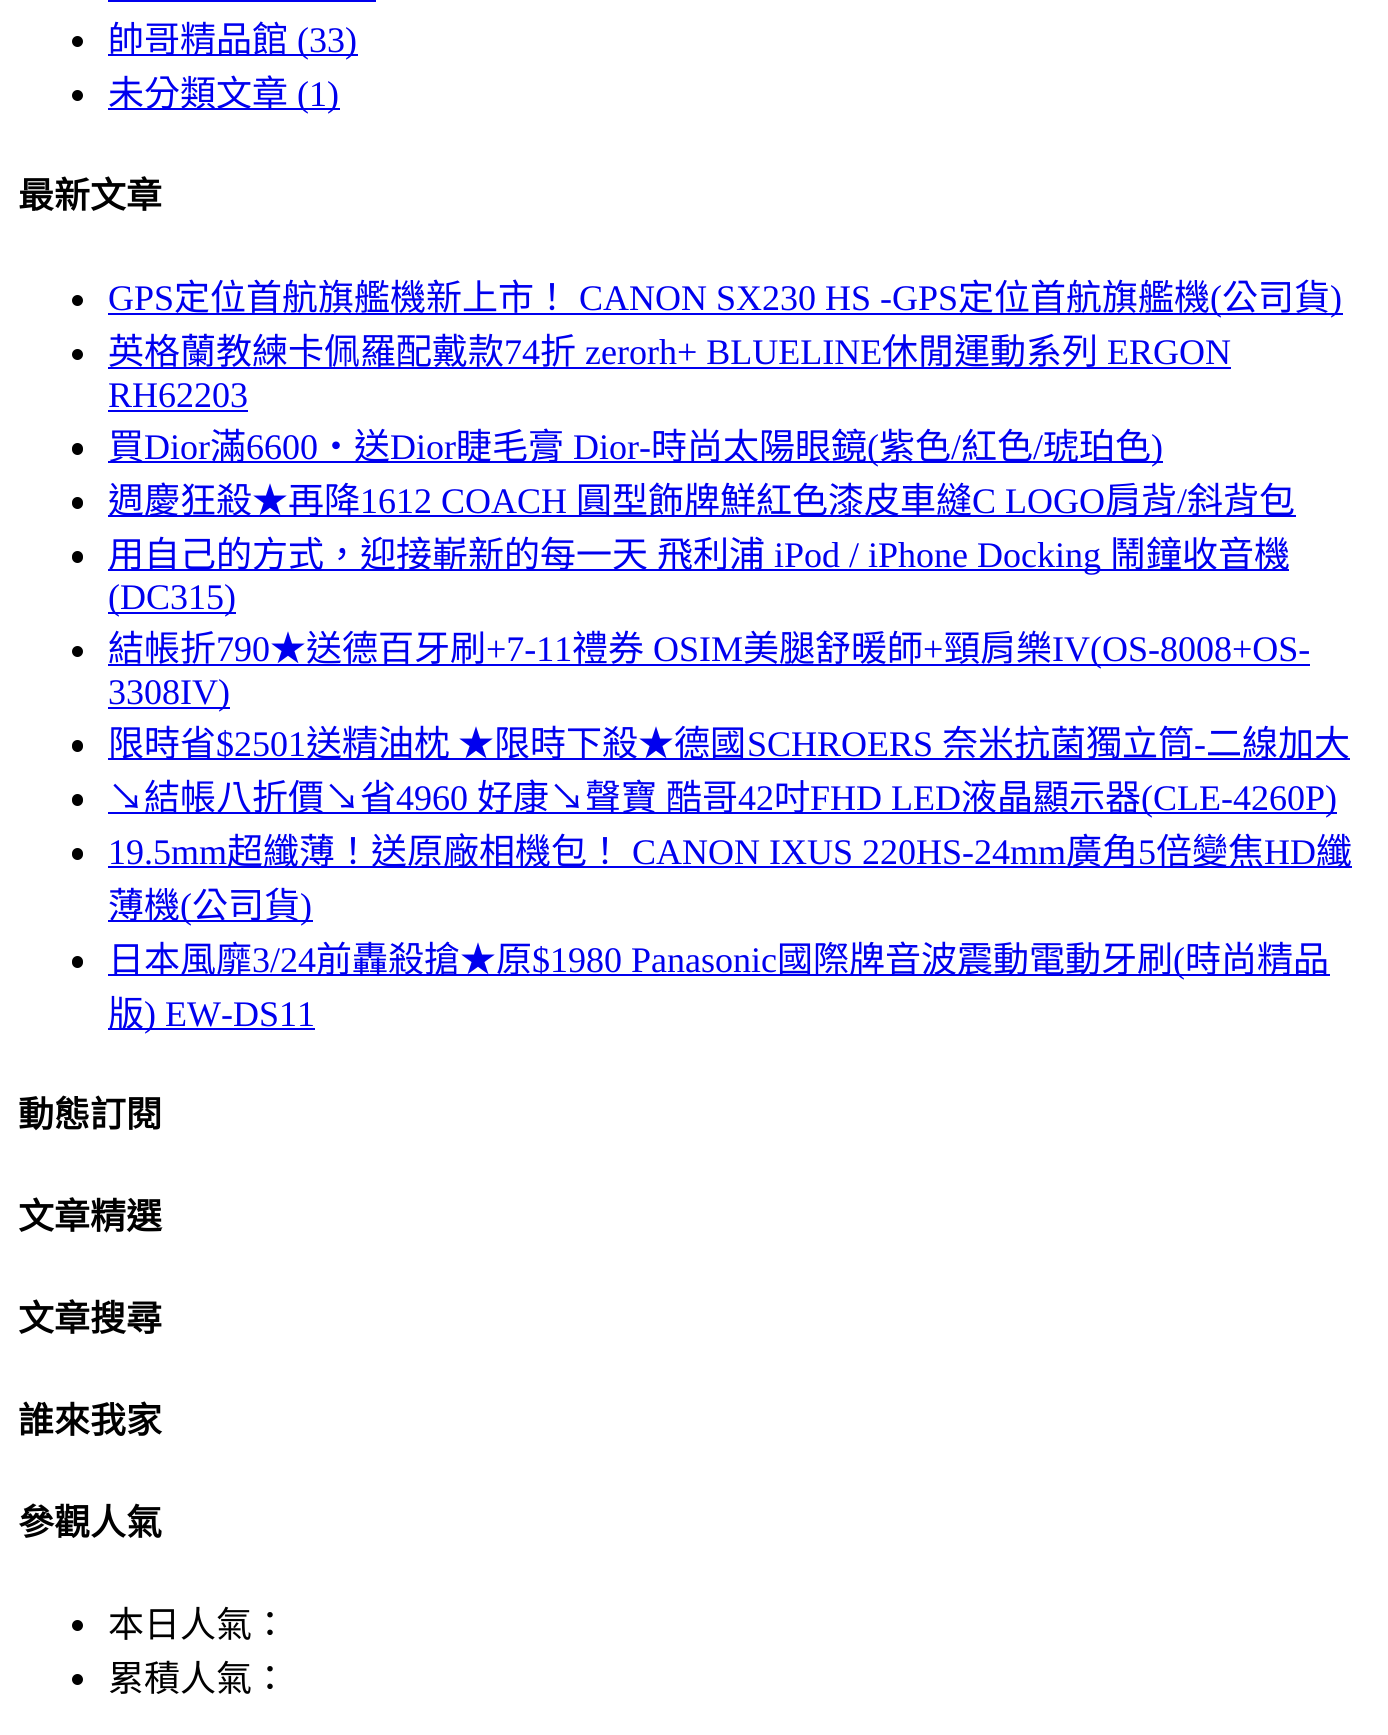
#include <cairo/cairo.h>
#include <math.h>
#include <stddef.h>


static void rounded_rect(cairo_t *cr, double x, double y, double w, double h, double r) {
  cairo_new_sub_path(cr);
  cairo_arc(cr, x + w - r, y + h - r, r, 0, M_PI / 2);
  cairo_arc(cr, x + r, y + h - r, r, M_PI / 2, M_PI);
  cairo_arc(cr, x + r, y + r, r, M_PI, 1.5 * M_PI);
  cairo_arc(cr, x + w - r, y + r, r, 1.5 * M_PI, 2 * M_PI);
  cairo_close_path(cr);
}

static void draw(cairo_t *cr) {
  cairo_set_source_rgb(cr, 1, 1, 1);
  cairo_paint(cr);
  cairo_set_source_rgb(cr, 0, 0, 238 / 255.0);
  cairo_rectangle(cr, 108, 0, 268, 2);
  cairo_fill(cr);
  cairo_set_source_rgb(cr, 0, 0, 0);
  cairo_arc(cr, 77.5, 41.5, 5.5, 0, 2 * M_PI);
  cairo_fill(cr);
  cairo_set_source_rgb(cr, 0, 0, 238 / 255.0);
  cairo_rectangle(cr, 108, 54, 250, 2);
  cairo_fill(cr);
  cairo_set_source_rgb(cr, 0, 0, 0);
  cairo_arc(cr, 77.5, 95.5, 5.5, 0, 2 * M_PI);
  cairo_fill(cr);
  cairo_set_source_rgb(cr, 0, 0, 238 / 255.0);
  cairo_rectangle(cr, 108, 108, 232, 2);
  cairo_fill(cr);
  cairo_set_source_rgb(cr, 0, 0, 0);
  cairo_arc(cr, 77.5, 300.5, 5.5, 0, 2 * M_PI);
  cairo_fill(cr);
  cairo_set_source_rgb(cr, 0, 0, 238 / 255.0);
  cairo_rectangle(cr, 108, 313, 1235, 2);
  cairo_fill(cr);
  cairo_set_source_rgb(cr, 0, 0, 0);
  cairo_arc(cr, 77.5, 354.5, 5.5, 0, 2 * M_PI);
  cairo_fill(cr);
  cairo_set_source_rgb(cr, 0, 0, 238 / 255.0);
  cairo_rectangle(cr, 108, 367, 1123, 2);
  cairo_fill(cr);
  cairo_rectangle(cr, 108, 410, 140, 2);
  cairo_fill(cr);
  cairo_set_source_rgb(cr, 0, 0, 0);
  rounded_rect(cr, 72, 443, 11, 12, 5.5);
  cairo_fill(cr);
  cairo_set_source_rgb(cr, 0, 0, 238 / 255.0);
  cairo_rectangle(cr, 108, 461, 1055, 2);
  cairo_fill(cr);
  cairo_set_source_rgb(cr, 0, 0, 0);
  rounded_rect(cr, 72, 497, 11, 12, 5.5);
  cairo_fill(cr);
  cairo_set_source_rgb(cr, 0, 0, 238 / 255.0);
  cairo_rectangle(cr, 108, 515, 1188, 2);
  cairo_fill(cr);
  cairo_set_source_rgb(cr, 0, 0, 0);
  rounded_rect(cr, 72, 551, 11, 12, 5.5);
  cairo_fill(cr);
  cairo_set_source_rgb(cr, 0, 0, 238 / 255.0);
  cairo_rectangle(cr, 108, 569, 1181, 2);
  cairo_fill(cr);
  cairo_rectangle(cr, 108, 612, 128, 2);
  cairo_fill(cr);
  cairo_set_source_rgb(cr, 0, 0, 0);
  cairo_arc(cr, 77.5, 651.5, 5.5, 0, 2 * M_PI);
  cairo_fill(cr);
  cairo_set_source_rgb(cr, 0, 0, 238 / 255.0);
  cairo_rectangle(cr, 108, 664, 1202, 2);
  cairo_fill(cr);
  cairo_rectangle(cr, 108, 707, 122, 2);
  cairo_fill(cr);
  cairo_set_source_rgb(cr, 0, 0, 0);
  rounded_rect(cr, 72, 740, 11, 12, 5.5);
  cairo_fill(cr);
  cairo_set_source_rgb(cr, 0, 0, 238 / 255.0);
  cairo_rectangle(cr, 108, 758, 1242, 2);
  cairo_fill(cr);
  cairo_set_source_rgb(cr, 0, 0, 0);
  rounded_rect(cr, 72, 794, 11, 12, 5.5);
  cairo_fill(cr);
  cairo_set_source_rgb(cr, 0, 0, 238 / 255.0);
  cairo_rectangle(cr, 108, 812, 1229, 2);
  cairo_fill(cr);
  cairo_set_source_rgb(cr, 0, 0, 0);
  rounded_rect(cr, 72, 848, 11, 12, 5.5);
  cairo_fill(cr);
  cairo_set_source_rgb(cr, 0, 0, 238 / 255.0);
  cairo_rectangle(cr, 108, 866, 1244, 2);
  cairo_fill(cr);
  cairo_rectangle(cr, 108, 920, 205, 2);
  cairo_fill(cr);
  cairo_set_source_rgb(cr, 0, 0, 0);
  rounded_rect(cr, 72, 956, 11, 12, 5.5);
  cairo_fill(cr);
  cairo_set_source_rgb(cr, 0, 0, 238 / 255.0);
  cairo_rectangle(cr, 108, 974, 1222, 2);
  cairo_fill(cr);
  cairo_rectangle(cr, 108, 1028, 207, 2);
  cairo_fill(cr);
  cairo_set_source_rgb(cr, 0, 0, 0);
  cairo_arc(cr, 77.5, 1625.5, 5.5, 0, 2 * M_PI);
  cairo_fill(cr);
  cairo_arc(cr, 77.5, 1679.5, 5.5, 0, 2 * M_PI);
  cairo_fill(cr);
  cairo_select_font_face(cr, "Noto Sans CJK TC", CAIRO_FONT_SLANT_NORMAL, CAIRO_FONT_WEIGHT_NORMAL);
  cairo_set_font_size(cr, 36);
  cairo_set_source_rgb(cr, 0, 0, 238 / 255.0);
  cairo_move_to(cr, 108, 52);
  cairo_show_text(cr, "帥哥精品館");
  cairo_select_font_face(cr, "Liberation Serif", CAIRO_FONT_SLANT_NORMAL, CAIRO_FONT_WEIGHT_NORMAL);
  cairo_move_to(cr, 297, 52);
  cairo_show_text(cr, "(33)");
  cairo_select_font_face(cr, "Noto Sans CJK TC", CAIRO_FONT_SLANT_NORMAL, CAIRO_FONT_WEIGHT_NORMAL);
  cairo_move_to(cr, 108, 106);
  cairo_show_text(cr, "未分類文章");
  cairo_select_font_face(cr, "Liberation Serif", CAIRO_FONT_SLANT_NORMAL, CAIRO_FONT_WEIGHT_NORMAL);
  cairo_move_to(cr, 297, 106);
  cairo_show_text(cr, "(1)");
  cairo_select_font_face(cr, "Noto Sans CJK TC", CAIRO_FONT_SLANT_NORMAL, CAIRO_FONT_WEIGHT_BOLD);
  cairo_set_source_rgb(cr, 0, 0, 0);
  cairo_move_to(cr, 18, 208);
  cairo_show_text(cr, "最新文章");
  cairo_select_font_face(cr, "Liberation Serif", CAIRO_FONT_SLANT_NORMAL, CAIRO_FONT_WEIGHT_NORMAL);
  cairo_set_source_rgb(cr, 0, 0, 238 / 255.0);
  cairo_move_to(cr, 108, 310);
  cairo_show_text(cr, "GPS");
  cairo_select_font_face(cr, "Noto Sans CJK TC", CAIRO_FONT_SLANT_NORMAL, CAIRO_FONT_WEIGHT_NORMAL);
  cairo_move_to(cr, 174, 310);
  cairo_show_text(cr, "定位首航旗艦機新上市！");
  cairo_select_font_face(cr, "Liberation Serif", CAIRO_FONT_SLANT_NORMAL, CAIRO_FONT_WEIGHT_NORMAL);
  cairo_move_to(cr, 579, 310);
  cairo_show_text(cr, "CANON SX230 HS -GPS");
  cairo_select_font_face(cr, "Noto Sans CJK TC", CAIRO_FONT_SLANT_NORMAL, CAIRO_FONT_WEIGHT_NORMAL);
  cairo_move_to(cr, 958, 310);
  cairo_show_text(cr, "定位首航旗艦機");
  cairo_select_font_face(cr, "Liberation Serif", CAIRO_FONT_SLANT_NORMAL, CAIRO_FONT_WEIGHT_NORMAL);
  cairo_move_to(cr, 1210, 310);
  cairo_show_text(cr, "(");
  cairo_select_font_face(cr, "Noto Sans CJK TC", CAIRO_FONT_SLANT_NORMAL, CAIRO_FONT_WEIGHT_NORMAL);
  cairo_move_to(cr, 1222, 310);
  cairo_show_text(cr, "公司貨");
  cairo_select_font_face(cr, "Liberation Serif", CAIRO_FONT_SLANT_NORMAL, CAIRO_FONT_WEIGHT_NORMAL);
  cairo_move_to(cr, 1330, 310);
  cairo_show_text(cr, ")");
  cairo_select_font_face(cr, "Noto Sans CJK TC", CAIRO_FONT_SLANT_NORMAL, CAIRO_FONT_WEIGHT_NORMAL);
  cairo_move_to(cr, 108, 364);
  cairo_show_text(cr, "英格蘭教練卡佩羅配戴款");
  cairo_select_font_face(cr, "Liberation Serif", CAIRO_FONT_SLANT_NORMAL, CAIRO_FONT_WEIGHT_NORMAL);
  cairo_move_to(cr, 504, 364);
  cairo_show_text(cr, "74");
  cairo_select_font_face(cr, "Noto Sans CJK TC", CAIRO_FONT_SLANT_NORMAL, CAIRO_FONT_WEIGHT_NORMAL);
  cairo_move_to(cr, 540, 364);
  cairo_show_text(cr, "折");
  cairo_select_font_face(cr, "Liberation Serif", CAIRO_FONT_SLANT_NORMAL, CAIRO_FONT_WEIGHT_NORMAL);
  cairo_move_to(cr, 585, 364);
  cairo_show_text(cr, "zerorh+ BLUELINE");
  cairo_select_font_face(cr, "Noto Sans CJK TC", CAIRO_FONT_SLANT_NORMAL, CAIRO_FONT_WEIGHT_NORMAL);
  cairo_move_to(cr, 882, 364);
  cairo_show_text(cr, "休閒運動系列");
  cairo_select_font_face(cr, "Liberation Serif", CAIRO_FONT_SLANT_NORMAL, CAIRO_FONT_WEIGHT_NORMAL);
  cairo_move_to(cr, 1107, 364);
  cairo_show_text(cr, "ERGON");
  cairo_move_to(cr, 108, 407);
  cairo_show_text(cr, "RH62203");
  cairo_select_font_face(cr, "Noto Sans CJK TC", CAIRO_FONT_SLANT_NORMAL, CAIRO_FONT_WEIGHT_NORMAL);
  cairo_move_to(cr, 108, 459);
  cairo_show_text(cr, "買");
  cairo_select_font_face(cr, "Liberation Serif", CAIRO_FONT_SLANT_NORMAL, CAIRO_FONT_WEIGHT_NORMAL);
  cairo_move_to(cr, 144, 459);
  cairo_show_text(cr, "Dior");
  cairo_select_font_face(cr, "Noto Sans CJK TC", CAIRO_FONT_SLANT_NORMAL, CAIRO_FONT_WEIGHT_NORMAL);
  cairo_move_to(cr, 210, 459);
  cairo_show_text(cr, "滿");
  cairo_select_font_face(cr, "Liberation Serif", CAIRO_FONT_SLANT_NORMAL, CAIRO_FONT_WEIGHT_NORMAL);
  cairo_move_to(cr, 246, 459);
  cairo_show_text(cr, "6600");
  cairo_select_font_face(cr, "Noto Sans CJK TC", CAIRO_FONT_SLANT_NORMAL, CAIRO_FONT_WEIGHT_NORMAL);
  cairo_move_to(cr, 318, 459);
  cairo_show_text(cr, "‧送");
  cairo_select_font_face(cr, "Liberation Serif", CAIRO_FONT_SLANT_NORMAL, CAIRO_FONT_WEIGHT_NORMAL);
  cairo_move_to(cr, 390, 459);
  cairo_show_text(cr, "Dior");
  cairo_select_font_face(cr, "Noto Sans CJK TC", CAIRO_FONT_SLANT_NORMAL, CAIRO_FONT_WEIGHT_NORMAL);
  cairo_move_to(cr, 456, 459);
  cairo_show_text(cr, "睫毛膏");
  cairo_select_font_face(cr, "Liberation Serif", CAIRO_FONT_SLANT_NORMAL, CAIRO_FONT_WEIGHT_NORMAL);
  cairo_move_to(cr, 573, 459);
  cairo_show_text(cr, "Dior-");
  cairo_select_font_face(cr, "Noto Sans CJK TC", CAIRO_FONT_SLANT_NORMAL, CAIRO_FONT_WEIGHT_NORMAL);
  cairo_move_to(cr, 651, 459);
  cairo_show_text(cr, "時尚太陽眼鏡");
  cairo_select_font_face(cr, "Liberation Serif", CAIRO_FONT_SLANT_NORMAL, CAIRO_FONT_WEIGHT_NORMAL);
  cairo_move_to(cr, 867, 459);
  cairo_show_text(cr, "(");
  cairo_select_font_face(cr, "Noto Sans CJK TC", CAIRO_FONT_SLANT_NORMAL, CAIRO_FONT_WEIGHT_NORMAL);
  cairo_move_to(cr, 879, 459);
  cairo_show_text(cr, "紫色");
  cairo_select_font_face(cr, "Liberation Serif", CAIRO_FONT_SLANT_NORMAL, CAIRO_FONT_WEIGHT_NORMAL);
  cairo_move_to(cr, 951, 459);
  cairo_show_text(cr, "/");
  cairo_select_font_face(cr, "Noto Sans CJK TC", CAIRO_FONT_SLANT_NORMAL, CAIRO_FONT_WEIGHT_NORMAL);
  cairo_move_to(cr, 961, 459);
  cairo_show_text(cr, "紅色");
  cairo_select_font_face(cr, "Liberation Serif", CAIRO_FONT_SLANT_NORMAL, CAIRO_FONT_WEIGHT_NORMAL);
  cairo_move_to(cr, 1033, 459);
  cairo_show_text(cr, "/");
  cairo_select_font_face(cr, "Noto Sans CJK TC", CAIRO_FONT_SLANT_NORMAL, CAIRO_FONT_WEIGHT_NORMAL);
  cairo_move_to(cr, 1043, 459);
  cairo_show_text(cr, "琥珀色");
  cairo_select_font_face(cr, "Liberation Serif", CAIRO_FONT_SLANT_NORMAL, CAIRO_FONT_WEIGHT_NORMAL);
  cairo_move_to(cr, 1151, 459);
  cairo_show_text(cr, ")");
  cairo_select_font_face(cr, "Noto Sans CJK TC", CAIRO_FONT_SLANT_NORMAL, CAIRO_FONT_WEIGHT_NORMAL);
  cairo_move_to(cr, 108, 513);
  cairo_show_text(cr, "週慶狂殺★再降");
  cairo_select_font_face(cr, "Liberation Serif", CAIRO_FONT_SLANT_NORMAL, CAIRO_FONT_WEIGHT_NORMAL);
  cairo_move_to(cr, 360, 513);
  cairo_show_text(cr, "1612 COACH");
  cairo_select_font_face(cr, "Noto Sans CJK TC", CAIRO_FONT_SLANT_NORMAL, CAIRO_FONT_WEIGHT_NORMAL);
  cairo_move_to(cr, 576, 513);
  cairo_show_text(cr, "圓型飾牌鮮紅色漆皮車縫");
  cairo_select_font_face(cr, "Liberation Serif", CAIRO_FONT_SLANT_NORMAL, CAIRO_FONT_WEIGHT_NORMAL);
  cairo_move_to(cr, 972, 513);
  cairo_show_text(cr, "C LOGO");
  cairo_select_font_face(cr, "Noto Sans CJK TC", CAIRO_FONT_SLANT_NORMAL, CAIRO_FONT_WEIGHT_NORMAL);
  cairo_move_to(cr, 1105, 513);
  cairo_show_text(cr, "肩背");
  cairo_select_font_face(cr, "Liberation Serif", CAIRO_FONT_SLANT_NORMAL, CAIRO_FONT_WEIGHT_NORMAL);
  cairo_move_to(cr, 1177, 513);
  cairo_show_text(cr, "/");
  cairo_select_font_face(cr, "Noto Sans CJK TC", CAIRO_FONT_SLANT_NORMAL, CAIRO_FONT_WEIGHT_NORMAL);
  cairo_move_to(cr, 1187, 513);
  cairo_show_text(cr, "斜背包");
  cairo_move_to(cr, 108, 567);
  cairo_show_text(cr, "用自己的方式，迎接嶄新的每一天");
  cairo_move_to(cr, 657, 567);
  cairo_show_text(cr, "飛利浦");
  cairo_select_font_face(cr, "Liberation Serif", CAIRO_FONT_SLANT_NORMAL, CAIRO_FONT_WEIGHT_NORMAL);
  cairo_move_to(cr, 774, 567);
  cairo_show_text(cr, "iPod / iPhone Docking");
  cairo_select_font_face(cr, "Noto Sans CJK TC", CAIRO_FONT_SLANT_NORMAL, CAIRO_FONT_WEIGHT_NORMAL);
  cairo_move_to(cr, 1110, 567);
  cairo_show_text(cr, "鬧鐘收音機");
  cairo_select_font_face(cr, "Liberation Serif", CAIRO_FONT_SLANT_NORMAL, CAIRO_FONT_WEIGHT_NORMAL);
  cairo_move_to(cr, 108, 609);
  cairo_show_text(cr, "(DC315)");
  cairo_select_font_face(cr, "Noto Sans CJK TC", CAIRO_FONT_SLANT_NORMAL, CAIRO_FONT_WEIGHT_NORMAL);
  cairo_move_to(cr, 108, 661);
  cairo_show_text(cr, "結帳折");
  cairo_select_font_face(cr, "Liberation Serif", CAIRO_FONT_SLANT_NORMAL, CAIRO_FONT_WEIGHT_NORMAL);
  cairo_move_to(cr, 216, 661);
  cairo_show_text(cr, "790");
  cairo_select_font_face(cr, "Noto Sans CJK TC", CAIRO_FONT_SLANT_NORMAL, CAIRO_FONT_WEIGHT_NORMAL);
  cairo_move_to(cr, 270, 661);
  cairo_show_text(cr, "★送德百牙刷");
  cairo_select_font_face(cr, "Liberation Serif", CAIRO_FONT_SLANT_NORMAL, CAIRO_FONT_WEIGHT_NORMAL);
  cairo_move_to(cr, 486, 661);
  cairo_show_text(cr, "+7-11");
  cairo_select_font_face(cr, "Noto Sans CJK TC", CAIRO_FONT_SLANT_NORMAL, CAIRO_FONT_WEIGHT_NORMAL);
  cairo_move_to(cr, 572, 661);
  cairo_show_text(cr, "禮券");
  cairo_select_font_face(cr, "Liberation Serif", CAIRO_FONT_SLANT_NORMAL, CAIRO_FONT_WEIGHT_NORMAL);
  cairo_move_to(cr, 653, 661);
  cairo_show_text(cr, "OSIM");
  cairo_select_font_face(cr, "Noto Sans CJK TC", CAIRO_FONT_SLANT_NORMAL, CAIRO_FONT_WEIGHT_NORMAL);
  cairo_move_to(cr, 743, 661);
  cairo_show_text(cr, "美腿舒暖師");
  cairo_select_font_face(cr, "Liberation Serif", CAIRO_FONT_SLANT_NORMAL, CAIRO_FONT_WEIGHT_NORMAL);
  cairo_move_to(cr, 923, 661);
  cairo_show_text(cr, "+");
  cairo_select_font_face(cr, "Noto Sans CJK TC", CAIRO_FONT_SLANT_NORMAL, CAIRO_FONT_WEIGHT_NORMAL);
  cairo_move_to(cr, 944, 661);
  cairo_show_text(cr, "頸肩樂");
  cairo_select_font_face(cr, "Liberation Serif", CAIRO_FONT_SLANT_NORMAL, CAIRO_FONT_WEIGHT_NORMAL);
  cairo_move_to(cr, 1052, 661);
  cairo_show_text(cr, "IV(OS-8008+OS-");
  cairo_move_to(cr, 108, 704);
  cairo_show_text(cr, "3308IV)");
  cairo_select_font_face(cr, "Noto Sans CJK TC", CAIRO_FONT_SLANT_NORMAL, CAIRO_FONT_WEIGHT_NORMAL);
  cairo_move_to(cr, 108, 756);
  cairo_show_text(cr, "限時省");
  cairo_select_font_face(cr, "Liberation Serif", CAIRO_FONT_SLANT_NORMAL, CAIRO_FONT_WEIGHT_NORMAL);
  cairo_move_to(cr, 216, 756);
  cairo_show_text(cr, "$2501");
  cairo_select_font_face(cr, "Noto Sans CJK TC", CAIRO_FONT_SLANT_NORMAL, CAIRO_FONT_WEIGHT_NORMAL);
  cairo_move_to(cr, 306, 756);
  cairo_show_text(cr, "送精油枕 ★限時下殺★德國");
  cairo_select_font_face(cr, "Liberation Serif", CAIRO_FONT_SLANT_NORMAL, CAIRO_FONT_WEIGHT_NORMAL);
  cairo_move_to(cr, 747, 756);
  cairo_show_text(cr, "SCHROERS");
  cairo_select_font_face(cr, "Noto Sans CJK TC", CAIRO_FONT_SLANT_NORMAL, CAIRO_FONT_WEIGHT_NORMAL);
  cairo_move_to(cr, 942, 756);
  cairo_show_text(cr, "奈米抗菌獨立筒");
  cairo_select_font_face(cr, "Liberation Serif", CAIRO_FONT_SLANT_NORMAL, CAIRO_FONT_WEIGHT_NORMAL);
  cairo_move_to(cr, 1194, 756);
  cairo_show_text(cr, "-");
  cairo_select_font_face(cr, "Noto Sans CJK TC", CAIRO_FONT_SLANT_NORMAL, CAIRO_FONT_WEIGHT_NORMAL);
  cairo_move_to(cr, 1206, 756);
  cairo_show_text(cr, "二線加大");
  cairo_move_to(cr, 108, 810);
  cairo_show_text(cr, "↘結帳八折價↘省");
  cairo_select_font_face(cr, "Liberation Serif", CAIRO_FONT_SLANT_NORMAL, CAIRO_FONT_WEIGHT_NORMAL);
  cairo_move_to(cr, 396, 810);
  cairo_show_text(cr, "4960");
  cairo_select_font_face(cr, "Noto Sans CJK TC", CAIRO_FONT_SLANT_NORMAL, CAIRO_FONT_WEIGHT_NORMAL);
  cairo_move_to(cr, 477, 810);
  cairo_show_text(cr, "好康↘聲寶");
  cairo_move_to(cr, 666, 810);
  cairo_show_text(cr, "酷哥");
  cairo_select_font_face(cr, "Liberation Serif", CAIRO_FONT_SLANT_NORMAL, CAIRO_FONT_WEIGHT_NORMAL);
  cairo_move_to(cr, 738, 810);
  cairo_show_text(cr, "42");
  cairo_select_font_face(cr, "Noto Sans CJK TC", CAIRO_FONT_SLANT_NORMAL, CAIRO_FONT_WEIGHT_NORMAL);
  cairo_move_to(cr, 774, 810);
  cairo_show_text(cr, "吋");
  cairo_select_font_face(cr, "Liberation Serif", CAIRO_FONT_SLANT_NORMAL, CAIRO_FONT_WEIGHT_NORMAL);
  cairo_move_to(cr, 810, 810);
  cairo_show_text(cr, "FHD LED");
  cairo_select_font_face(cr, "Noto Sans CJK TC", CAIRO_FONT_SLANT_NORMAL, CAIRO_FONT_WEIGHT_NORMAL);
  cairo_move_to(cr, 961, 810);
  cairo_show_text(cr, "液晶顯示器");
  cairo_select_font_face(cr, "Liberation Serif", CAIRO_FONT_SLANT_NORMAL, CAIRO_FONT_WEIGHT_NORMAL);
  cairo_move_to(cr, 1141, 810);
  cairo_show_text(cr, "(CLE-4260P)");
  cairo_move_to(cr, 108, 864);
  cairo_show_text(cr, "19.5mm");
  cairo_select_font_face(cr, "Noto Sans CJK TC", CAIRO_FONT_SLANT_NORMAL, CAIRO_FONT_WEIGHT_NORMAL);
  cairo_move_to(cr, 227, 864);
  cairo_show_text(cr, "超纖薄！送原廠相機包！");
  cairo_select_font_face(cr, "Liberation Serif", CAIRO_FONT_SLANT_NORMAL, CAIRO_FONT_WEIGHT_NORMAL);
  cairo_move_to(cr, 632, 864);
  cairo_show_text(cr, "CANON IXUS 220HS-24mm");
  cairo_select_font_face(cr, "Noto Sans CJK TC", CAIRO_FONT_SLANT_NORMAL, CAIRO_FONT_WEIGHT_NORMAL);
  cairo_move_to(cr, 1066, 864);
  cairo_show_text(cr, "廣角");
  cairo_select_font_face(cr, "Liberation Serif", CAIRO_FONT_SLANT_NORMAL, CAIRO_FONT_WEIGHT_NORMAL);
  cairo_move_to(cr, 1138, 864);
  cairo_show_text(cr, "5");
  cairo_select_font_face(cr, "Noto Sans CJK TC", CAIRO_FONT_SLANT_NORMAL, CAIRO_FONT_WEIGHT_NORMAL);
  cairo_move_to(cr, 1156, 864);
  cairo_show_text(cr, "倍變焦");
  cairo_select_font_face(cr, "Liberation Serif", CAIRO_FONT_SLANT_NORMAL, CAIRO_FONT_WEIGHT_NORMAL);
  cairo_move_to(cr, 1264, 864);
  cairo_show_text(cr, "HD");
  cairo_select_font_face(cr, "Noto Sans CJK TC", CAIRO_FONT_SLANT_NORMAL, CAIRO_FONT_WEIGHT_NORMAL);
  cairo_move_to(cr, 1316, 864);
  cairo_show_text(cr, "纖");
  cairo_move_to(cr, 108, 918);
  cairo_show_text(cr, "薄機");
  cairo_select_font_face(cr, "Liberation Serif", CAIRO_FONT_SLANT_NORMAL, CAIRO_FONT_WEIGHT_NORMAL);
  cairo_move_to(cr, 180, 918);
  cairo_show_text(cr, "(");
  cairo_select_font_face(cr, "Noto Sans CJK TC", CAIRO_FONT_SLANT_NORMAL, CAIRO_FONT_WEIGHT_NORMAL);
  cairo_move_to(cr, 192, 918);
  cairo_show_text(cr, "公司貨");
  cairo_select_font_face(cr, "Liberation Serif", CAIRO_FONT_SLANT_NORMAL, CAIRO_FONT_WEIGHT_NORMAL);
  cairo_move_to(cr, 300, 918);
  cairo_show_text(cr, ")");
  cairo_select_font_face(cr, "Noto Sans CJK TC", CAIRO_FONT_SLANT_NORMAL, CAIRO_FONT_WEIGHT_NORMAL);
  cairo_move_to(cr, 108, 972);
  cairo_show_text(cr, "日本風靡");
  cairo_select_font_face(cr, "Liberation Serif", CAIRO_FONT_SLANT_NORMAL, CAIRO_FONT_WEIGHT_NORMAL);
  cairo_move_to(cr, 252, 972);
  cairo_show_text(cr, "3/24");
  cairo_select_font_face(cr, "Noto Sans CJK TC", CAIRO_FONT_SLANT_NORMAL, CAIRO_FONT_WEIGHT_NORMAL);
  cairo_move_to(cr, 316, 972);
  cairo_show_text(cr, "前轟殺搶★原");
  cairo_select_font_face(cr, "Liberation Serif", CAIRO_FONT_SLANT_NORMAL, CAIRO_FONT_WEIGHT_NORMAL);
  cairo_move_to(cr, 532, 972);
  cairo_show_text(cr, "$1980 Panasonic");
  cairo_select_font_face(cr, "Noto Sans CJK TC", CAIRO_FONT_SLANT_NORMAL, CAIRO_FONT_WEIGHT_NORMAL);
  cairo_move_to(cr, 777, 972);
  cairo_show_text(cr, "國際牌音波震動電動牙刷");
  cairo_select_font_face(cr, "Liberation Serif", CAIRO_FONT_SLANT_NORMAL, CAIRO_FONT_WEIGHT_NORMAL);
  cairo_move_to(cr, 1173, 972);
  cairo_show_text(cr, "(");
  cairo_select_font_face(cr, "Noto Sans CJK TC", CAIRO_FONT_SLANT_NORMAL, CAIRO_FONT_WEIGHT_NORMAL);
  cairo_move_to(cr, 1185, 972);
  cairo_show_text(cr, "時尚精品");
  cairo_move_to(cr, 108, 1026);
  cairo_show_text(cr, "版");
  cairo_select_font_face(cr, "Liberation Serif", CAIRO_FONT_SLANT_NORMAL, CAIRO_FONT_WEIGHT_NORMAL);
  cairo_move_to(cr, 144, 1026);
  cairo_show_text(cr, ") EW-DS11");
  cairo_select_font_face(cr, "Noto Sans CJK TC", CAIRO_FONT_SLANT_NORMAL, CAIRO_FONT_WEIGHT_BOLD);
  cairo_set_source_rgb(cr, 0, 0, 0);
  cairo_move_to(cr, 18, 1127);
  cairo_show_text(cr, "動態訂閱");
  cairo_move_to(cr, 18, 1229);
  cairo_show_text(cr, "文章精選");
  cairo_move_to(cr, 18, 1331);
  cairo_show_text(cr, "文章搜尋");
  cairo_move_to(cr, 18, 1433);
  cairo_show_text(cr, "誰來我家");
  cairo_move_to(cr, 18, 1535);
  cairo_show_text(cr, "參觀人氣");
  cairo_select_font_face(cr, "Noto Sans CJK TC", CAIRO_FONT_SLANT_NORMAL, CAIRO_FONT_WEIGHT_NORMAL);
  cairo_move_to(cr, 108, 1637);
  cairo_show_text(cr, "本日人氣：");
  cairo_move_to(cr, 108, 1691);
  cairo_show_text(cr, "累積人氣：");
}

int main(void) {
  cairo_surface_t *surface = cairo_image_surface_create(CAIRO_FORMAT_RGB24, 1388, 1735);
  cairo_t *cr = cairo_create(surface);
  cairo_font_options_t *options = cairo_font_options_create();
  cairo_font_options_set_hint_metrics(options, CAIRO_HINT_METRICS_OFF);
  cairo_font_options_set_hint_style(options, CAIRO_HINT_STYLE_NONE);
  cairo_set_font_options(cr, options);
  cairo_set_miter_limit(cr, 4);
  draw(cr);
  cairo_surface_write_to_png(surface, "out.png");
  cairo_font_options_destroy(options);
  cairo_destroy(cr);
  cairo_surface_destroy(surface);
  return 0;
}
